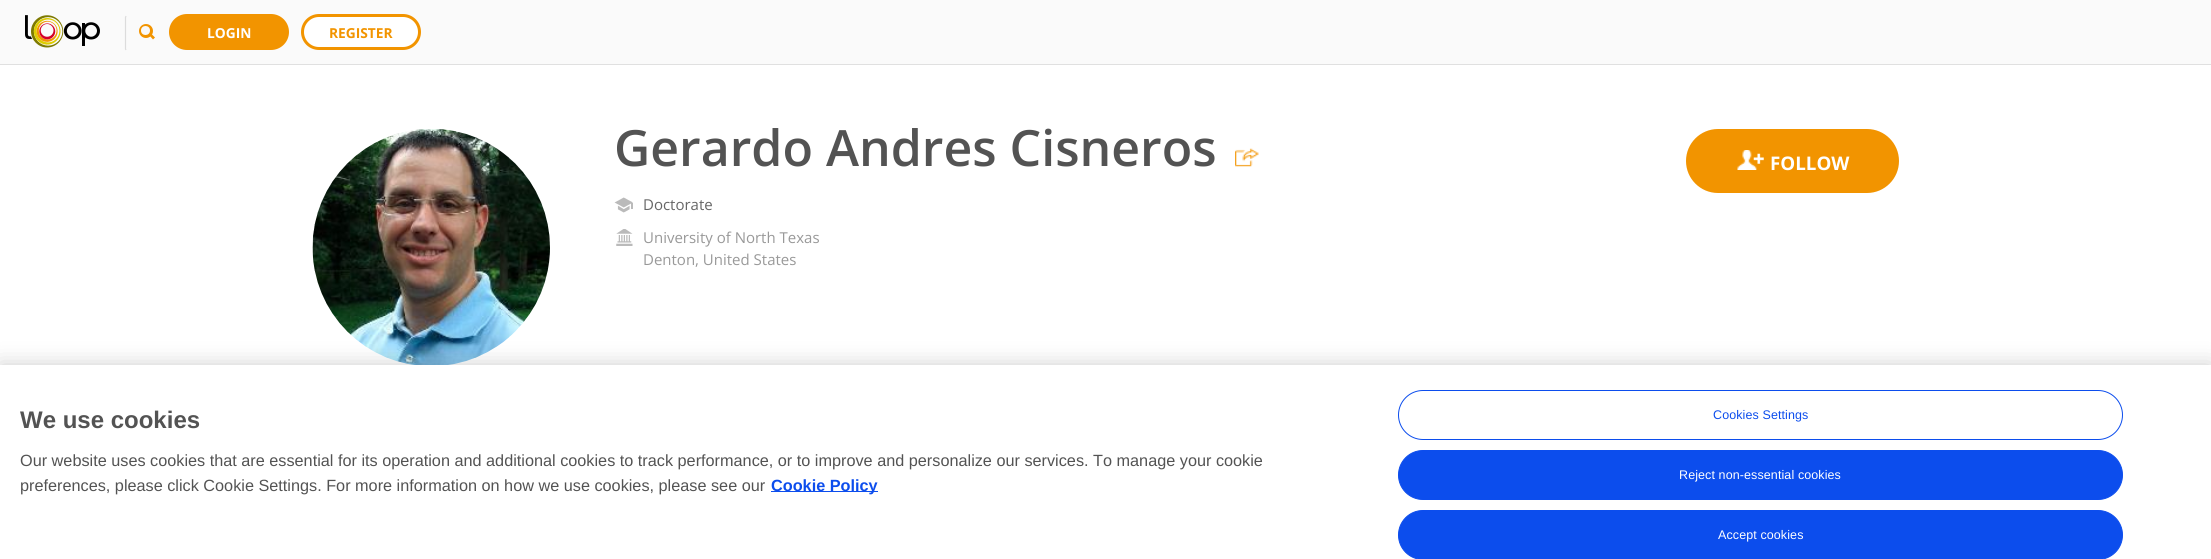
#include <cairo/cairo.h>
#include <math.h>
#include <stddef.h>


static void draw_spaced(cairo_t *cr, double x, double y, const char *s, double letter, double word) {
  cairo_move_to(cr, x, y);
  while (*s) {
    char ch[5] = {0};
    int n = 0;
    do ch[n++] = *s++; while ((*s & 0xC0) == 0x80);
    cairo_show_text(cr, ch);
    cairo_rel_move_to(cr, letter + word * (*ch == ' '), 0);
  }
}

static void rounded_rect(cairo_t *cr, double x, double y, double w, double h, double r) {
  cairo_new_sub_path(cr);
  cairo_arc(cr, x + w - r, y + h - r, r, 0, M_PI / 2);
  cairo_arc(cr, x + r, y + h - r, r, M_PI / 2, M_PI);
  cairo_arc(cr, x + r, y + r, r, M_PI, 1.5 * M_PI);
  cairo_arc(cr, x + w - r, y + r, r, 1.5 * M_PI, 2 * M_PI);
  cairo_close_path(cr);
}

static void draw_shadow(cairo_t *cr, double x, double y, double w, double h, double r, double blur, double alpha) {
  cairo_push_group_with_content(cr, CAIRO_CONTENT_ALPHA);
  cairo_set_operator(cr, CAIRO_OPERATOR_SOURCE);
  for (int i = 15; i >= -15 && fmin(w, h) + blur * i / 3 > 0; i -= 2) {
    double e = blur * i / 6;
    cairo_set_source_rgba(cr, 0, 0, 0, alpha * erfc((i - 1) / 8.5) / 2);
    rounded_rect(cr, x - e, y - e, w + 2 * e, h + 2 * e, fmax(0, fmin(r + e + blur * .6, fmin(w, h) / 2 + e)));
    cairo_fill(cr);
  }
  cairo_pattern_t *soft = cairo_pop_group(cr);
  cairo_mask(cr, soft);
  cairo_pattern_destroy(soft);
}

static void draw_image(cairo_t *cr, const char *path, double x, double y, double w, double h) {
  cairo_surface_t *image = cairo_image_surface_create_from_png(path);
  cairo_save(cr);
  cairo_set_source_surface(cr, image, x, y);
  cairo_rectangle(cr, x, y, w, h);
  cairo_fill(cr);
  cairo_restore(cr);
  cairo_surface_destroy(image);
}

static void draw(cairo_t *cr) {
  cairo_set_source_rgb(cr, 1, 1, 1);
  cairo_paint(cr);
  cairo_set_source_rgb(cr, 250 / 255.0, 250 / 255.0, 250 / 255.0);
  cairo_rectangle(cr, 0, 0, 2211, 64);
  cairo_fill(cr);
  cairo_set_source_rgb(cr, 224 / 255.0, 224 / 255.0, 224 / 255.0);
  cairo_rectangle(cr, 0, 64, 2211, 1);
  cairo_fill(cr);
  draw_image(cr, "images/1.png", 25, 15, 75, 33);
  cairo_new_path(cr);
  cairo_move_to(cr, 126, 50);
  cairo_line_to(cr, 125.5, 49);
  cairo_line_to(cr, 125.5, 17.5);
  cairo_line_to(cr, 126, 16);
  cairo_set_source_rgb(cr, 220 / 255.0, 220 / 255.0, 220 / 255.0);
  cairo_set_line_width(cr, 1.2);
  cairo_stroke(cr);
  cairo_set_source_rgb(cr, 242 / 255.0, 148 / 255.0, 0);
  cairo_arc(cr, 146, 31, 7, 0, 2 * M_PI);
  cairo_fill(cr);
  cairo_set_source_rgb(cr, 249 / 255.0, 249 / 255.0, 249 / 255.0);
  cairo_arc(cr, 145.5, 30.5, 4.5, 0, 2 * M_PI);
  cairo_fill(cr);
  cairo_set_source_rgb(cr, 242 / 255.0, 148 / 255.0, 0);
  cairo_new_path(cr);
  cairo_move_to(cr, 150.5, 33);
  cairo_line_to(cr, 155, 37.5);
  cairo_line_to(cr, 153, 39.5);
  cairo_line_to(cr, 149, 35);
  cairo_close_path(cr);
  cairo_fill(cr);
  rounded_rect(cr, 170.5, 15.5, 117, 33, 16.5);
  cairo_fill_preserve(cr);
  cairo_set_line_width(cr, 3);
  cairo_stroke(cr);
  cairo_set_source_rgb(cr, 1, 1, 1);
  rounded_rect(cr, 302.5, 15.5, 117, 33, 16.5);
  cairo_fill_preserve(cr);
  cairo_set_source_rgb(cr, 242 / 255.0, 148 / 255.0, 0);
  cairo_stroke(cr);
  draw_image(cr, "images/2.png", 312, 129, 238, 236);
  draw_image(cr, "images/3.png", 1235, 148, 24, 19);
  draw_image(cr, "images/4.png", 614, 197, 19, 16);
  draw_image(cr, "images/5.png", 616, 229, 17, 17);
  rounded_rect(cr, 1688, 131, 209, 60, 30);
  cairo_fill_preserve(cr);
  cairo_set_line_width(cr, 4);
  cairo_stroke(cr);
  draw_image(cr, "images/6.png", 1737, 150, 27, 20);
  cairo_set_source_rgb(cr, 0, 0, 0);
  draw_shadow(cr, 0, 365, 2211, 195, 0, 11, 0.2);
  cairo_set_source_rgb(cr, 1, 1, 1);
  cairo_rectangle(cr, 0, 365, 2211, 194);
  cairo_fill(cr);
  cairo_set_source_rgb(cr, 12 / 255.0, 77 / 255.0, 237 / 255.0);
  cairo_rectangle(cr, 771, 491, 107, 1);
  cairo_fill(cr);
  rounded_rect(cr, 1398.5, 390.5, 724, 49, 24.5);
  cairo_set_line_width(cr, 1);
  cairo_stroke(cr);
  rounded_rect(cr, 1398.5, 450.5, 724, 49, 24.5);
  cairo_fill_preserve(cr);
  cairo_stroke(cr);
  rounded_rect(cr, 1398.5, 510.5, 724, 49, 24.5);
  cairo_fill_preserve(cr);
  cairo_stroke(cr);
  cairo_select_font_face(cr, "Open Sans", CAIRO_FONT_SLANT_NORMAL, CAIRO_FONT_WEIGHT_BOLD);
  cairo_set_font_size(cr, 13.75);
  cairo_set_source_rgb(cr, 1, 1, 1);
  cairo_move_to(cr, 207, 38);
  cairo_show_text(cr, "LOGIN");
  cairo_set_source_rgb(cr, 242 / 255.0, 148 / 255.0, 0);
  cairo_move_to(cr, 329, 38);
  cairo_show_text(cr, "REGISTER");
  cairo_select_font_face(cr, "Open Sans SemiBold", CAIRO_FONT_SLANT_NORMAL, CAIRO_FONT_WEIGHT_NORMAL);
  cairo_set_font_size(cr, 50);
  cairo_set_source_rgb(cr, 83 / 255.0, 83 / 255.0, 83 / 255.0);
  cairo_move_to(cr, 614, 166);
  cairo_show_text(cr, "Gerardo Andres Cisneros");
  cairo_select_font_face(cr, "Open Sans", CAIRO_FONT_SLANT_NORMAL, CAIRO_FONT_WEIGHT_NORMAL);
  cairo_set_font_size(cr, 15);
  cairo_set_source_rgb(cr, 102 / 255.0, 102 / 255.0, 102 / 255.0);
  cairo_move_to(cr, 643, 210);
  cairo_show_text(cr, "Doctorate");
  cairo_set_source_rgb(cr, 153 / 255.0, 153 / 255.0, 153 / 255.0);
  cairo_move_to(cr, 643, 243);
  cairo_show_text(cr, "University of North Texas");
  cairo_move_to(cr, 643, 265);
  cairo_show_text(cr, "Denton, United States");
  cairo_select_font_face(cr, "Open Sans", CAIRO_FONT_SLANT_NORMAL, CAIRO_FONT_WEIGHT_BOLD);
  cairo_set_font_size(cr, 18.75);
  cairo_set_source_rgb(cr, 1, 1, 1);
  cairo_move_to(cr, 1770, 170);
  cairo_show_text(cr, "FOLLOW");
  cairo_select_font_face(cr, "Liberation Sans", CAIRO_FONT_SLANT_NORMAL, CAIRO_FONT_WEIGHT_BOLD);
  cairo_set_font_size(cr, 24);
  cairo_set_source_rgb(cr, 83 / 255.0, 83 / 255.0, 83 / 255.0);
  cairo_move_to(cr, 20, 428);
  cairo_show_text(cr, "We use cookies");
  cairo_select_font_face(cr, "Liberation Sans", CAIRO_FONT_SLANT_NORMAL, CAIRO_FONT_WEIGHT_NORMAL);
  cairo_set_font_size(cr, 16.25);
  cairo_move_to(cr, 20, 466);
  cairo_show_text(cr, "Our website uses cookies that are essential for its operation and additional cookies to track performance, or to improve and personalize our services. To manage your cookie");
  cairo_move_to(cr, 20, 491);
  cairo_show_text(cr, "preferences, please click Cookie Settings. For more information on how we use cookies, please see our");
  cairo_select_font_face(cr, "Liberation Sans", CAIRO_FONT_SLANT_NORMAL, CAIRO_FONT_WEIGHT_BOLD);
  cairo_set_source_rgb(cr, 12 / 255.0, 77 / 255.0, 237 / 255.0);
  cairo_move_to(cr, 771, 491);
  cairo_show_text(cr, "Cookie Policy");
  cairo_select_font_face(cr, "Liberation Sans", CAIRO_FONT_SLANT_NORMAL, CAIRO_FONT_WEIGHT_NORMAL);
  cairo_set_font_size(cr, 12.5);
  draw_spaced(cr, 1713, 419, "Cookies Settings", 0.1, 0);
  cairo_set_source_rgb(cr, 1, 1, 1);
  draw_spaced(cr, 1679, 479, "Reject non-essential cookies", 0.1, 0);
  draw_spaced(cr, 1718, 539, "Accept cookies", 0.1, 0);
}

int main(void) {
  cairo_surface_t *surface = cairo_image_surface_create(CAIRO_FORMAT_RGB24, 2211, 559);
  cairo_t *cr = cairo_create(surface);
  cairo_font_options_t *options = cairo_font_options_create();
  cairo_font_options_set_hint_metrics(options, CAIRO_HINT_METRICS_OFF);
  cairo_font_options_set_hint_style(options, CAIRO_HINT_STYLE_NONE);
  cairo_set_font_options(cr, options);
  cairo_set_miter_limit(cr, 4);
  draw(cr);
  cairo_surface_write_to_png(surface, "out.png");
  cairo_font_options_destroy(options);
  cairo_destroy(cr);
  cairo_surface_destroy(surface);
  return 0;
}
